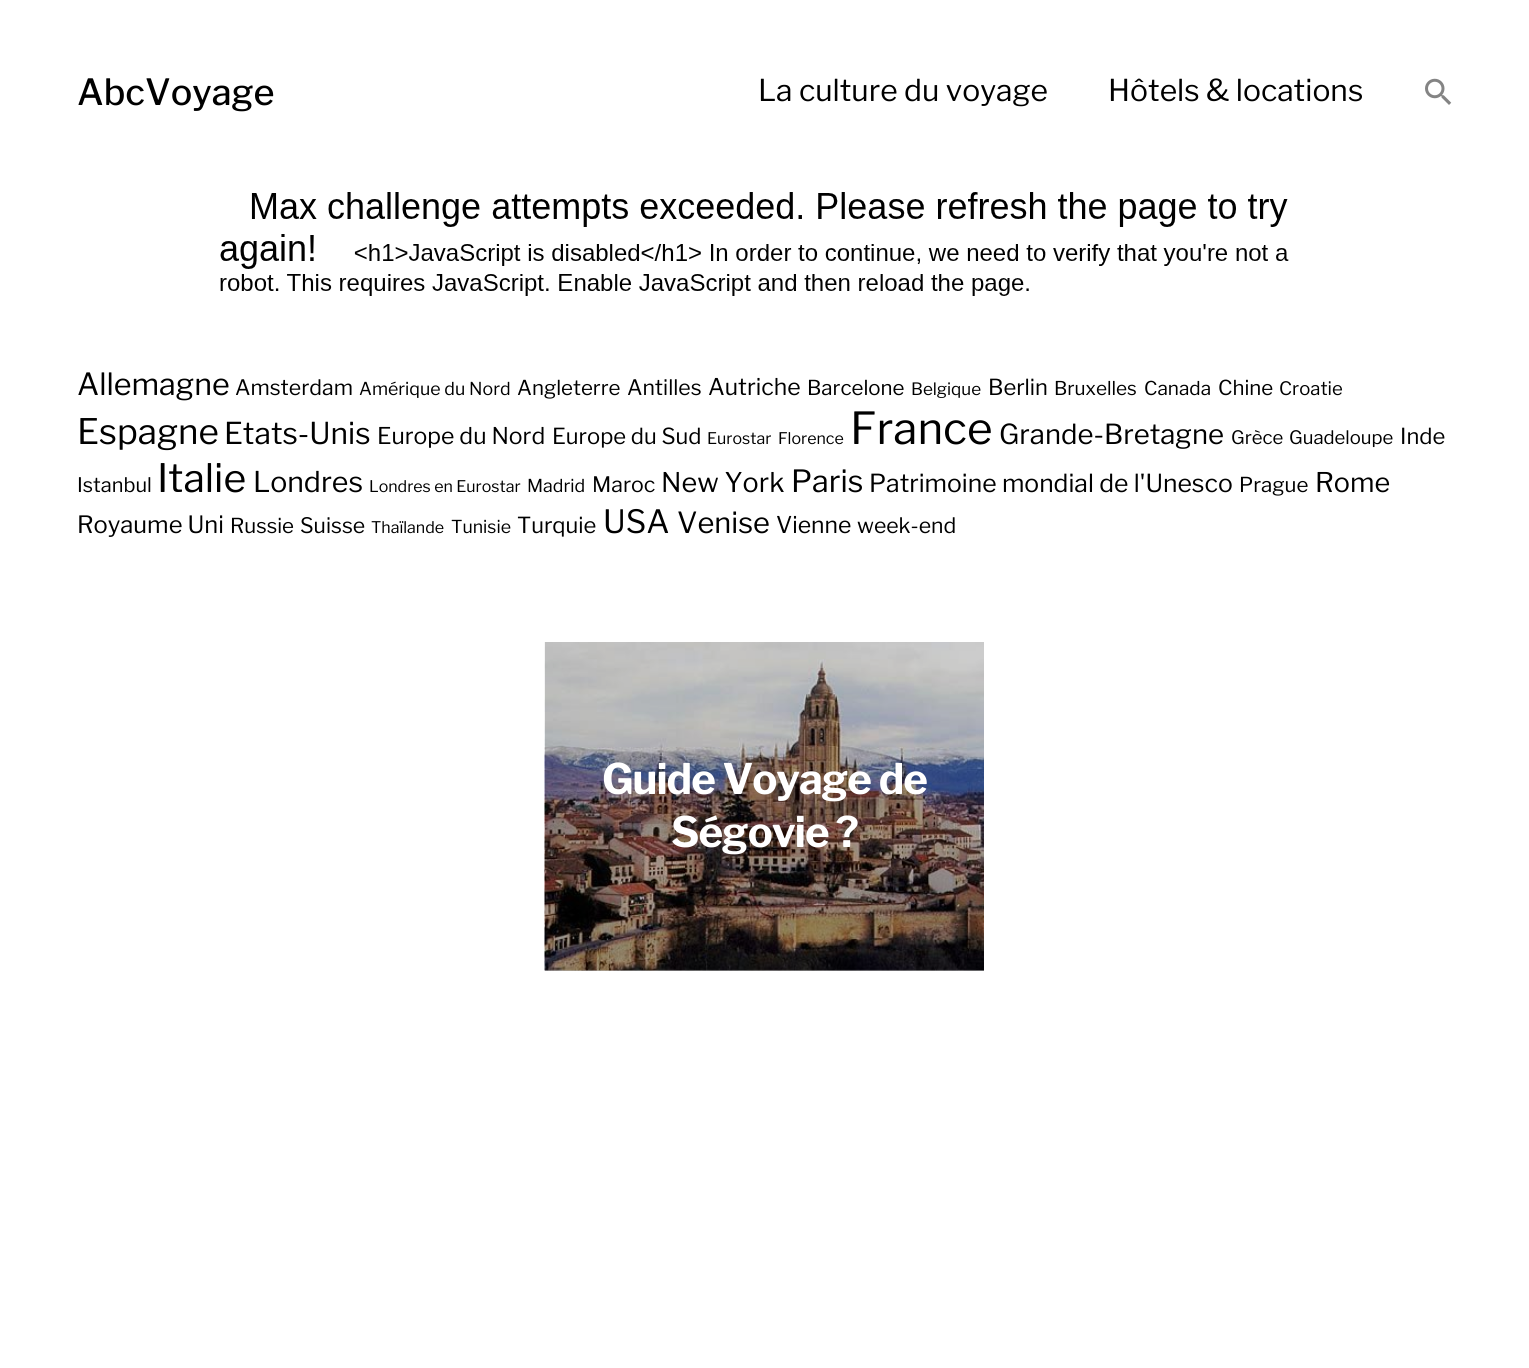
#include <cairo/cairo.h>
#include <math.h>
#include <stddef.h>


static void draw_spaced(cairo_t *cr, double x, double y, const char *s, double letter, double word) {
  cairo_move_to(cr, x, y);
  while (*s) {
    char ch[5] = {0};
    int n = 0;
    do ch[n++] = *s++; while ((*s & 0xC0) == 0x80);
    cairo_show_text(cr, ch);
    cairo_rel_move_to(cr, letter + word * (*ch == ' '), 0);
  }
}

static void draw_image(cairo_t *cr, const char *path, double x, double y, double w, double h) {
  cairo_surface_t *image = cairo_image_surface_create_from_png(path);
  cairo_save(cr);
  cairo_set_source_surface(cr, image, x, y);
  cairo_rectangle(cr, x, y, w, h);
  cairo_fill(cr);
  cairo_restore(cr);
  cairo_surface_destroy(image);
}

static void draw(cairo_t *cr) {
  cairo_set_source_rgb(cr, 1, 1, 1);
  cairo_paint(cr);
  draw_image(cr, "images/1.png", 1425, 78, 27, 27);
  draw_image(cr, "images/2.png", 220, 192, 1069, 104);
  cairo_set_source_rgb(cr, 184 / 255.0, 184 / 255.0, 184 / 255.0);
  cairo_rectangle(cr, 545, 970, 439, 1);
  cairo_fill(cr);
  draw_image(cr, "images/3.png", 544, 642, 440, 329);
  cairo_select_font_face(cr, "Libre Franklin Medium", CAIRO_FONT_SLANT_NORMAL, CAIRO_FONT_WEIGHT_NORMAL);
  cairo_set_font_size(cr, 36);
  cairo_set_source_rgb(cr, 0, 0, 0);
  cairo_move_to(cr, 77, 105);
  cairo_show_text(cr, "AbcVoyage");
  cairo_select_font_face(cr, "Libre Franklin", CAIRO_FONT_SLANT_NORMAL, CAIRO_FONT_WEIGHT_NORMAL);
  cairo_set_font_size(cr, 30);
  cairo_move_to(cr, 758, 101);
  cairo_show_text(cr, "La culture du voyage");
  cairo_move_to(cr, 1108, 101);
  cairo_show_text(cr, "Hôtels & locations");
  cairo_set_font_size(cr, 30.5);
  cairo_move_to(cr, 77, 395);
  cairo_show_text(cr, "Allemagne");
  cairo_set_font_size(cr, 21.25);
  cairo_move_to(cr, 235, 395);
  cairo_show_text(cr, "Amsterdam");
  cairo_set_font_size(cr, 17.75);
  cairo_move_to(cr, 359, 395);
  cairo_show_text(cr, "Amérique du Nord");
  cairo_set_font_size(cr, 20.5);
  cairo_move_to(cr, 517, 395);
  cairo_show_text(cr, "Angleterre");
  cairo_set_font_size(cr, 21.25);
  cairo_move_to(cr, 627, 395);
  cairo_show_text(cr, "Antilles");
  cairo_set_font_size(cr, 23);
  cairo_move_to(cr, 708, 395);
  cairo_show_text(cr, "Autriche");
  cairo_set_font_size(cr, 20.5);
  cairo_move_to(cr, 807, 395);
  cairo_show_text(cr, "Barcelone");
  cairo_set_font_size(cr, 17);
  cairo_move_to(cr, 911, 395);
  cairo_show_text(cr, "Belgique");
  cairo_set_font_size(cr, 22);
  cairo_move_to(cr, 988, 395);
  cairo_show_text(cr, "Berlin");
  cairo_set_font_size(cr, 19);
  cairo_move_to(cr, 1054, 395);
  cairo_show_text(cr, "Bruxelles");
  cairo_move_to(cr, 1144, 395);
  cairo_show_text(cr, "Canada");
  cairo_set_font_size(cr, 20.5);
  cairo_move_to(cr, 1218, 395);
  cairo_show_text(cr, "Chine");
  cairo_set_font_size(cr, 18.5);
  cairo_move_to(cr, 1279, 395);
  cairo_show_text(cr, "Croatie");
  cairo_set_font_size(cr, 35);
  cairo_move_to(cr, 77, 444);
  cairo_show_text(cr, "Espagne");
  cairo_set_font_size(cr, 30);
  cairo_move_to(cr, 224, 444);
  cairo_show_text(cr, "Etats-Unis");
  cairo_set_font_size(cr, 23);
  cairo_move_to(cr, 377, 444);
  cairo_show_text(cr, "Europe du Nord");
  cairo_set_font_size(cr, 22);
  cairo_move_to(cr, 552, 444);
  cairo_show_text(cr, "Europe du Sud");
  cairo_set_font_size(cr, 16);
  cairo_move_to(cr, 707, 444);
  cairo_show_text(cr, "Eurostar");
  cairo_move_to(cr, 778, 444);
  cairo_show_text(cr, "Florence");
  cairo_set_font_size(cr, 44);
  cairo_move_to(cr, 850, 444);
  cairo_show_text(cr, "France");
  cairo_set_font_size(cr, 27.5);
  cairo_move_to(cr, 999, 444);
  cairo_show_text(cr, "Grande-Bretagne");
  cairo_set_font_size(cr, 18.5);
  cairo_move_to(cr, 1231, 444);
  cairo_show_text(cr, "Grèce");
  cairo_move_to(cr, 1289, 444);
  cairo_show_text(cr, "Guadeloupe");
  cairo_set_font_size(cr, 22);
  cairo_move_to(cr, 1400, 444);
  cairo_show_text(cr, "Inde");
  cairo_set_font_size(cr, 20);
  cairo_move_to(cr, 77, 492);
  cairo_show_text(cr, "Istanbul");
  cairo_set_font_size(cr, 39);
  cairo_move_to(cr, 157, 492);
  cairo_show_text(cr, "Italie");
  cairo_set_font_size(cr, 28.5);
  cairo_move_to(cr, 253, 492);
  cairo_show_text(cr, "Londres");
  cairo_set_font_size(cr, 16);
  cairo_move_to(cr, 369, 492);
  cairo_show_text(cr, "Londres en Eurostar");
  cairo_set_font_size(cr, 17.75);
  cairo_move_to(cr, 527, 492);
  cairo_show_text(cr, "Madrid");
  cairo_set_font_size(cr, 21.25);
  cairo_move_to(cr, 592, 492);
  cairo_show_text(cr, "Maroc");
  cairo_set_font_size(cr, 27);
  cairo_move_to(cr, 661, 492);
  cairo_show_text(cr, "New York");
  cairo_set_font_size(cr, 30.5);
  cairo_move_to(cr, 791, 492);
  cairo_show_text(cr, "Paris");
  cairo_set_font_size(cr, 24.75);
  cairo_move_to(cr, 869, 492);
  cairo_show_text(cr, "Patrimoine mondial de l'Unesco");
  cairo_set_font_size(cr, 20.5);
  cairo_move_to(cr, 1239, 492);
  cairo_show_text(cr, "Prague");
  cairo_set_font_size(cr, 27);
  cairo_move_to(cr, 1315, 492);
  cairo_show_text(cr, "Rome");
  cairo_set_font_size(cr, 23.75);
  cairo_move_to(cr, 77, 533);
  cairo_show_text(cr, "Royaume Uni");
  cairo_set_font_size(cr, 20.5);
  cairo_move_to(cr, 230, 533);
  cairo_show_text(cr, "Russie");
  cairo_set_font_size(cr, 21.25);
  cairo_move_to(cr, 300, 533);
  cairo_show_text(cr, "Suisse");
  cairo_set_font_size(cr, 16);
  cairo_move_to(cr, 371, 533);
  cairo_show_text(cr, "Thaïlande");
  cairo_set_font_size(cr, 17.75);
  cairo_move_to(cr, 451, 533);
  cairo_show_text(cr, "Tunisie");
  cairo_set_font_size(cr, 22);
  cairo_move_to(cr, 517, 533);
  cairo_show_text(cr, "Turquie");
  cairo_set_font_size(cr, 32);
  cairo_move_to(cr, 603, 533);
  cairo_show_text(cr, "USA");
  cairo_set_font_size(cr, 29);
  cairo_move_to(cr, 677, 533);
  cairo_show_text(cr, "Venise");
  cairo_set_font_size(cr, 23);
  cairo_move_to(cr, 776, 533);
  cairo_show_text(cr, "Vienne");
  cairo_set_font_size(cr, 21.25);
  cairo_move_to(cr, 857, 533);
  cairo_show_text(cr, "week-end");
  cairo_select_font_face(cr, "Libre Franklin", CAIRO_FONT_SLANT_NORMAL, CAIRO_FONT_WEIGHT_BOLD);
  cairo_set_font_size(cr, 42);
  cairo_set_source_rgb(cr, 1, 1, 1);
  draw_spaced(cr, 602, 794, "Guide Voyage de", -1, 0);
  draw_spaced(cr, 671, 847, "Ségovie ?", -1, 0);
}

int main(void) {
  cairo_surface_t *surface = cairo_image_surface_create(CAIRO_FORMAT_RGB24, 1529, 1368);
  cairo_t *cr = cairo_create(surface);
  cairo_font_options_t *options = cairo_font_options_create();
  cairo_font_options_set_hint_metrics(options, CAIRO_HINT_METRICS_OFF);
  cairo_font_options_set_hint_style(options, CAIRO_HINT_STYLE_NONE);
  cairo_set_font_options(cr, options);
  cairo_set_miter_limit(cr, 4);
  draw(cr);
  cairo_surface_write_to_png(surface, "out.png");
  cairo_font_options_destroy(options);
  cairo_destroy(cr);
  cairo_surface_destroy(surface);
  return 0;
}
